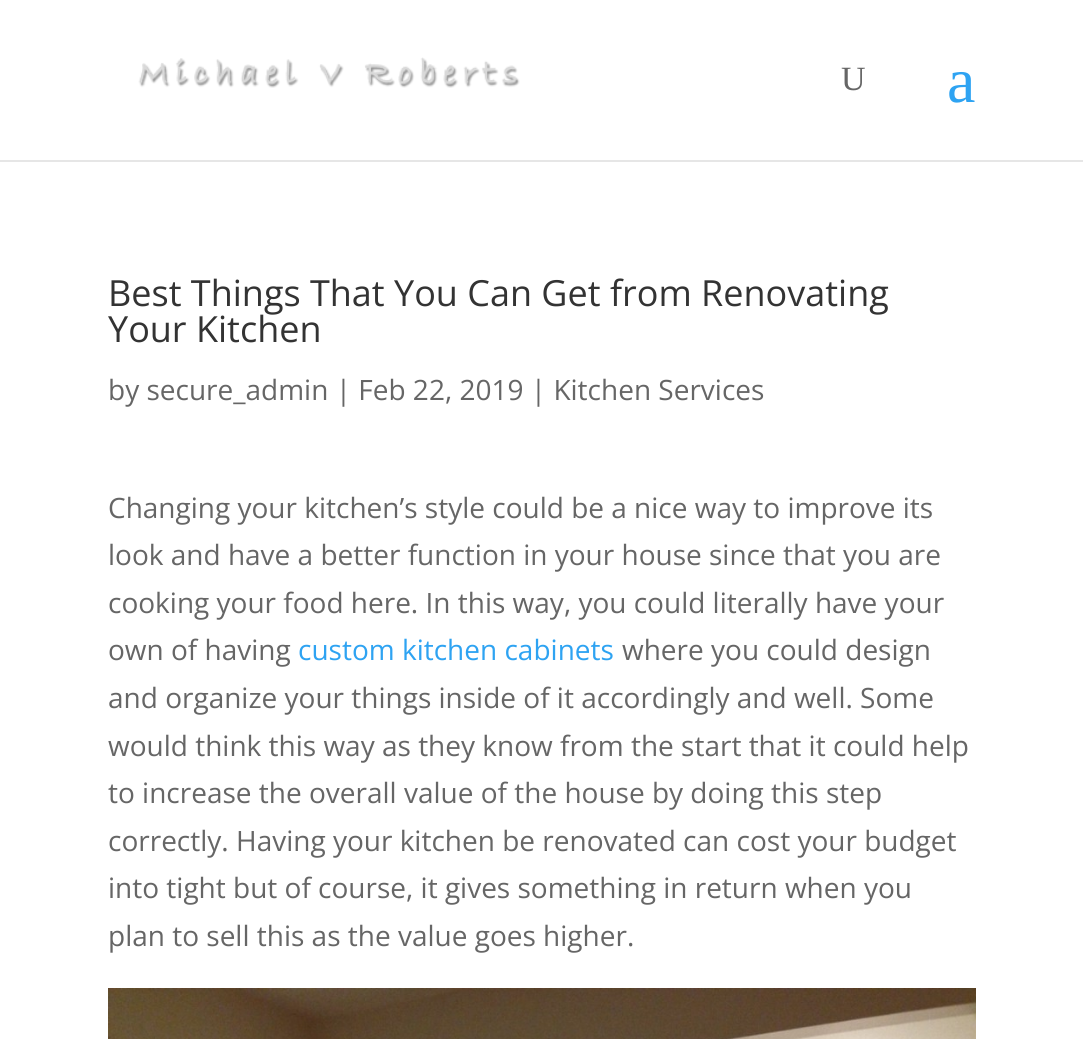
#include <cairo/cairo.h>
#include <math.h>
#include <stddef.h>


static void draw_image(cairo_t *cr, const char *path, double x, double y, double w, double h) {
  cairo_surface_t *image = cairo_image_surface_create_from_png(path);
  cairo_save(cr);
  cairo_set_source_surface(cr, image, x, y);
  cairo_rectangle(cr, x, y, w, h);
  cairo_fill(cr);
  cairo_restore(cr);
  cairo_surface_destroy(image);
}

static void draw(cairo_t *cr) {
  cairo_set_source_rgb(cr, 1, 1, 1);
  cairo_paint(cr);
  cairo_set_source_rgb(cr, 230 / 255.0, 230 / 255.0, 230 / 255.0);
  cairo_rectangle(cr, 0, 160, 1083, 2);
  cairo_fill(cr);
  draw_image(cr, "images/1.png", 138, 57, 382, 31);
  draw_image(cr, "images/2.png", 108, 988, 868, 51);
  cairo_select_font_face(cr, "Liberation Serif", CAIRO_FONT_SLANT_NORMAL, CAIRO_FONT_WEIGHT_NORMAL);
  cairo_set_font_size(cr, 34);
  cairo_set_source_rgb(cr, 102 / 255.0, 102 / 255.0, 102 / 255.0);
  cairo_move_to(cr, 841, 90);
  cairo_show_text(cr, "U");
  cairo_set_font_size(cr, 64);
  cairo_set_source_rgb(cr, 46 / 255.0, 163 / 255.0, 242 / 255.0);
  cairo_move_to(cr, 947, 102);
  cairo_show_text(cr, "a");
  cairo_select_font_face(cr, "Open Sans", CAIRO_FONT_SLANT_NORMAL, CAIRO_FONT_WEIGHT_NORMAL);
  cairo_set_font_size(cr, 36);
  cairo_set_source_rgb(cr, 51 / 255.0, 51 / 255.0, 51 / 255.0);
  cairo_move_to(cr, 108, 306);
  cairo_show_text(cr, "Best Things That You Can Get from Renovating");
  cairo_move_to(cr, 108, 342);
  cairo_show_text(cr, "Your Kitchen");
  cairo_set_font_size(cr, 28);
  cairo_set_source_rgb(cr, 102 / 255.0, 102 / 255.0, 102 / 255.0);
  cairo_move_to(cr, 108, 400);
  cairo_show_text(cr, "by secure_admin | Feb 22, 2019 | Kitchen Services");
  cairo_move_to(cr, 108, 518);
  cairo_show_text(cr, "Changing your kitchen’s style could be a nice way to improve its");
  cairo_move_to(cr, 108, 565);
  cairo_show_text(cr, "look and have a better function in your house since that you are");
  cairo_move_to(cr, 108, 613);
  cairo_show_text(cr, "cooking your food here. In this way, you could literally have your");
  cairo_move_to(cr, 108, 660);
  cairo_show_text(cr, "own of having");
  cairo_set_source_rgb(cr, 46 / 255.0, 163 / 255.0, 242 / 255.0);
  cairo_move_to(cr, 298, 660);
  cairo_show_text(cr, "custom kitchen cabinets");
  cairo_set_source_rgb(cr, 102 / 255.0, 102 / 255.0, 102 / 255.0);
  cairo_move_to(cr, 622, 660);
  cairo_show_text(cr, "where you could design");
  cairo_move_to(cr, 108, 708);
  cairo_show_text(cr, "and organize your things inside of it accordingly and well. Some");
  cairo_move_to(cr, 108, 756);
  cairo_show_text(cr, "would think this way as they know from the start that it could help");
  cairo_move_to(cr, 108, 803);
  cairo_show_text(cr, "to increase the overall value of the house by doing this step");
  cairo_move_to(cr, 108, 851);
  cairo_show_text(cr, "correctly. Having your kitchen be renovated can cost your budget");
  cairo_move_to(cr, 108, 898);
  cairo_show_text(cr, "into tight but of course, it gives something in return when you");
  cairo_move_to(cr, 108, 946);
  cairo_show_text(cr, "plan to sell this as the value goes higher.");
}

int main(void) {
  cairo_surface_t *surface = cairo_image_surface_create(CAIRO_FORMAT_RGB24, 1083, 1039);
  cairo_t *cr = cairo_create(surface);
  cairo_font_options_t *options = cairo_font_options_create();
  cairo_font_options_set_hint_metrics(options, CAIRO_HINT_METRICS_OFF);
  cairo_font_options_set_hint_style(options, CAIRO_HINT_STYLE_NONE);
  cairo_set_font_options(cr, options);
  cairo_set_miter_limit(cr, 4);
  draw(cr);
  cairo_surface_write_to_png(surface, "out.png");
  cairo_font_options_destroy(options);
  cairo_destroy(cr);
  cairo_surface_destroy(surface);
  return 0;
}
